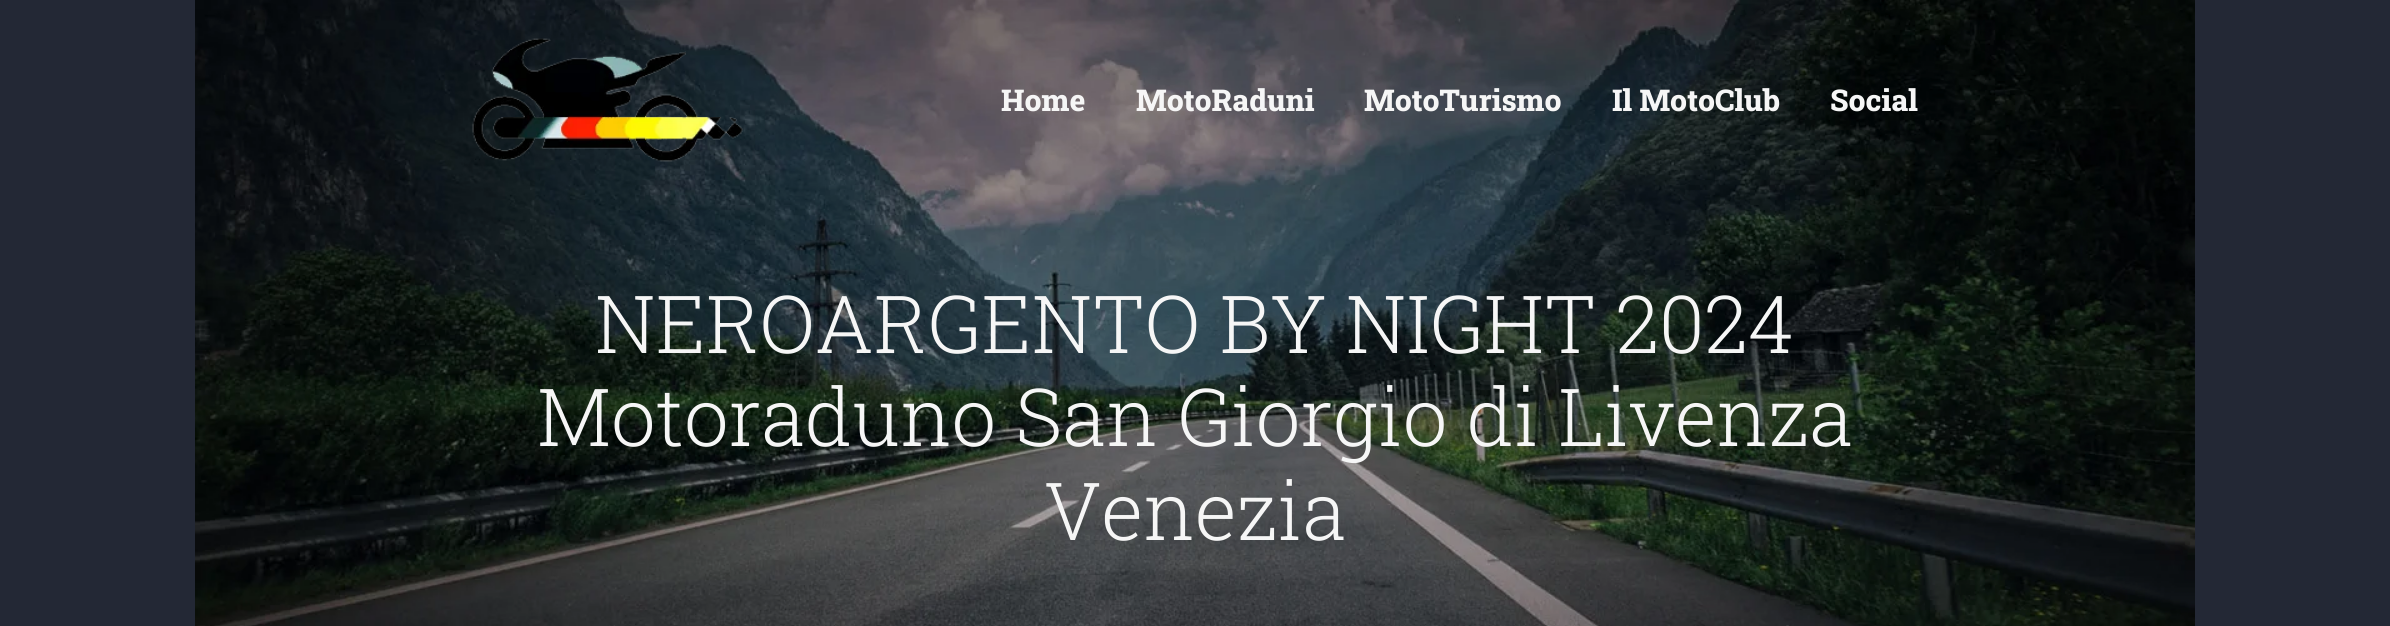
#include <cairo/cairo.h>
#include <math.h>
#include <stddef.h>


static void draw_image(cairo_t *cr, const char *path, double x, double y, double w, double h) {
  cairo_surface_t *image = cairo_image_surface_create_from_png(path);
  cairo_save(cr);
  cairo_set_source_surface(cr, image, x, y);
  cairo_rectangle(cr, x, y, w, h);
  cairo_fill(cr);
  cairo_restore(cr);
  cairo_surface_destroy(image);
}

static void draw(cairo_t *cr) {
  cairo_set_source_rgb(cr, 35 / 255.0, 40 / 255.0, 53 / 255.0);
  cairo_paint(cr);
  draw_image(cr, "images/1.png", 195, 0, 2000, 626);
  draw_image(cr, "images/2.png", 472, 38, 271, 124);
  cairo_select_font_face(cr, "Roboto Slab ExtraBold", CAIRO_FONT_SLANT_NORMAL, CAIRO_FONT_WEIGHT_NORMAL);
  cairo_set_font_size(cr, 30);
  cairo_set_source_rgb(cr, 246 / 255.0, 246 / 255.0, 246 / 255.0);
  cairo_move_to(cr, 1001, 111);
  cairo_show_text(cr, "Home");
  cairo_move_to(cr, 1136, 111);
  cairo_show_text(cr, "MotoRaduni");
  cairo_move_to(cr, 1364, 111);
  cairo_show_text(cr, "MotoTurismo");
  cairo_move_to(cr, 1612, 111);
  cairo_show_text(cr, "Il MotoClub");
  cairo_move_to(cr, 1830, 111);
  cairo_show_text(cr, "Social");
  cairo_select_font_face(cr, "Roboto Slab Light", CAIRO_FONT_SLANT_NORMAL, CAIRO_FONT_WEIGHT_NORMAL);
  cairo_set_font_size(cr, 80);
  cairo_move_to(cr, 595, 353);
  cairo_show_text(cr, "NEROARGENTO BY NIGHT 2024");
  cairo_move_to(cr, 537, 446);
  cairo_show_text(cr, "Motoraduno San Giorgio di Livenza");
  cairo_move_to(cr, 1044, 540);
  cairo_show_text(cr, "Venezia");
}

int main(void) {
  cairo_surface_t *surface = cairo_image_surface_create(CAIRO_FORMAT_RGB24, 2390, 626);
  cairo_t *cr = cairo_create(surface);
  cairo_font_options_t *options = cairo_font_options_create();
  cairo_font_options_set_hint_metrics(options, CAIRO_HINT_METRICS_OFF);
  cairo_font_options_set_hint_style(options, CAIRO_HINT_STYLE_NONE);
  cairo_set_font_options(cr, options);
  cairo_set_miter_limit(cr, 4);
  draw(cr);
  cairo_surface_write_to_png(surface, "out.png");
  cairo_font_options_destroy(options);
  cairo_destroy(cr);
  cairo_surface_destroy(surface);
  return 0;
}
